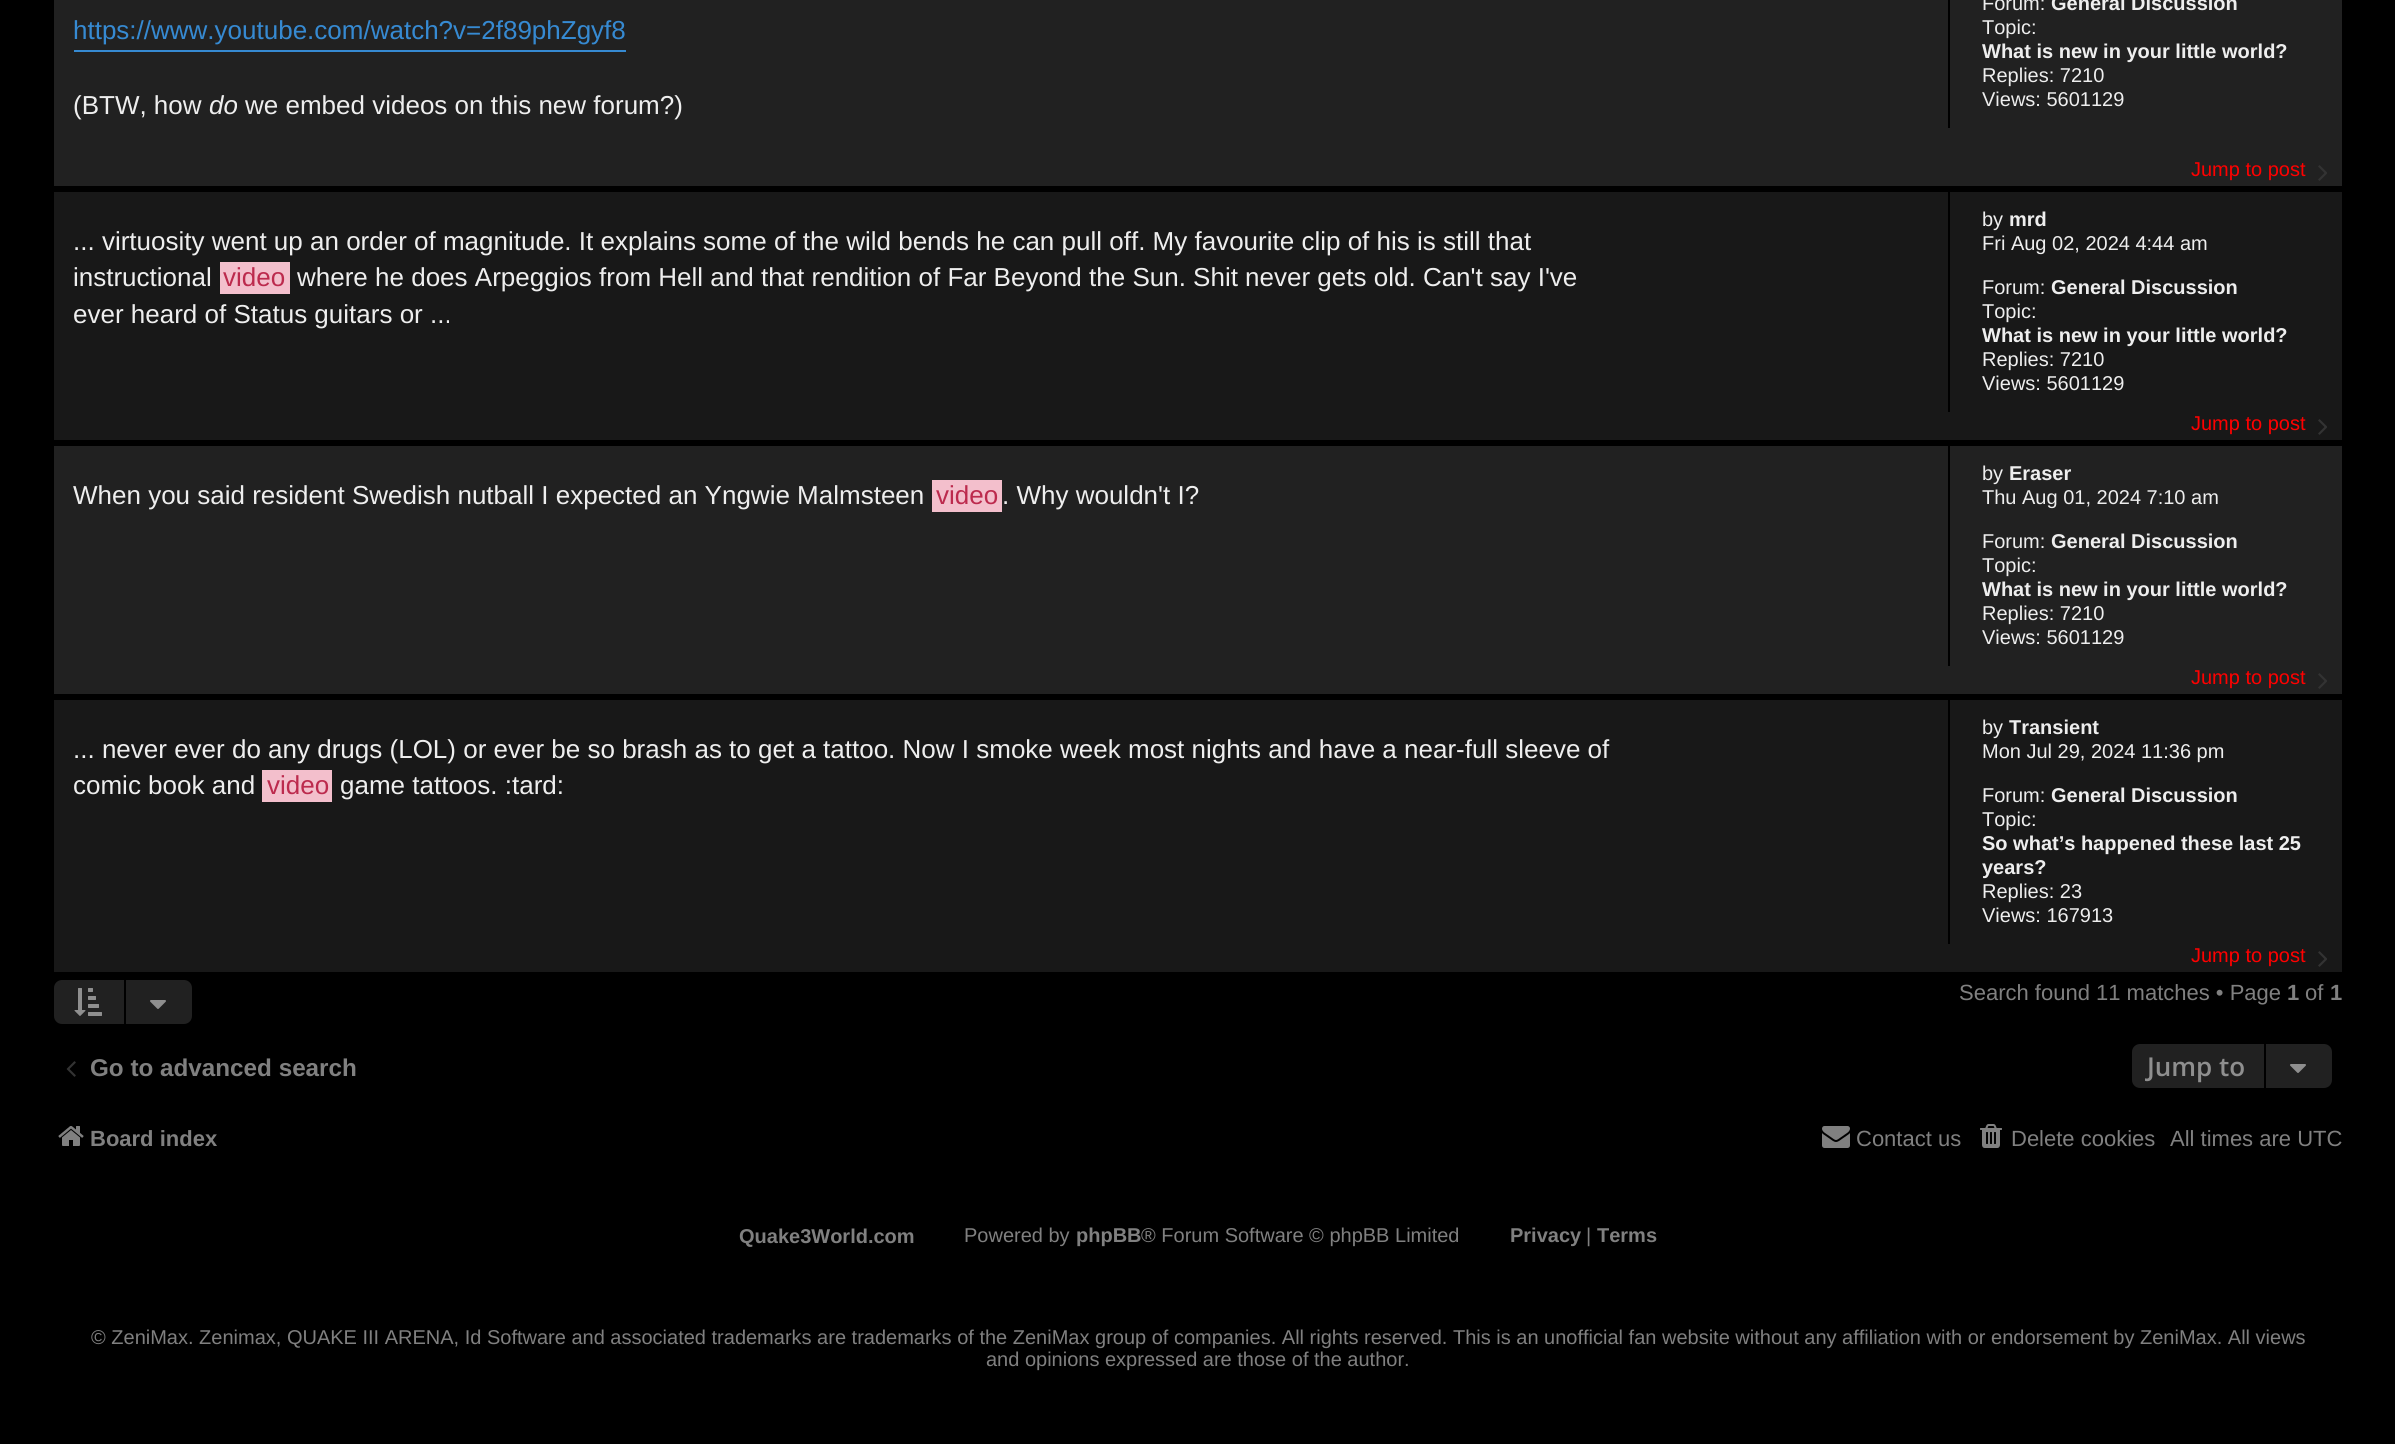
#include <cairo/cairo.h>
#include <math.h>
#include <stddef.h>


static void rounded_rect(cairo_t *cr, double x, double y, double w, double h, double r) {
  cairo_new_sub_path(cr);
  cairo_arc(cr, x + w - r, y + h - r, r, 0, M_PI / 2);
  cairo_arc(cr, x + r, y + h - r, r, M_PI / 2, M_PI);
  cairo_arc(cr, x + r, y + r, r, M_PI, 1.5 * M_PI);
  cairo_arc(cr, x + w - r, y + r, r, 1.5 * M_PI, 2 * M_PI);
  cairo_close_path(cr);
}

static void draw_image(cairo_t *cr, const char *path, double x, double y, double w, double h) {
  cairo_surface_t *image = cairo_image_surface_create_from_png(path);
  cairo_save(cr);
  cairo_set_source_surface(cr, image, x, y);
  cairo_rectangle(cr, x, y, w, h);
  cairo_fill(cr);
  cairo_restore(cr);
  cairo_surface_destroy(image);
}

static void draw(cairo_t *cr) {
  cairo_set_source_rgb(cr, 0, 0, 0);
  cairo_paint(cr);
  cairo_set_source_rgb(cr, 33 / 255.0, 33 / 255.0, 33 / 255.0);
  cairo_rectangle(cr, 54, 0, 2288, 186);
  cairo_fill(cr);
  cairo_set_source_rgb(cr, 54 / 255.0, 138 / 255.0, 210 / 255.0);
  cairo_rectangle(cr, 74, 50, 552, 2);
  cairo_fill(cr);
  cairo_set_source_rgb(cr, 0, 0, 0);
  cairo_rectangle(cr, 1948, 0, 2, 128);
  cairo_fill(cr);
  draw_image(cr, "images/1.png", 2318, 165, 9, 16);
  cairo_set_source_rgb(cr, 24 / 255.0, 24 / 255.0, 24 / 255.0);
  cairo_rectangle(cr, 54, 192, 2288, 248);
  cairo_fill(cr);
  cairo_set_source_rgb(cr, 243 / 255.0, 191 / 255.0, 204 / 255.0);
  cairo_rectangle(cr, 220, 262, 70, 32);
  cairo_fill(cr);
  cairo_set_source_rgb(cr, 0, 0, 0);
  cairo_rectangle(cr, 1948, 192, 2, 220);
  cairo_fill(cr);
  draw_image(cr, "images/2.png", 2318, 419, 9, 16);
  cairo_set_source_rgb(cr, 33 / 255.0, 33 / 255.0, 33 / 255.0);
  cairo_rectangle(cr, 54, 446, 2288, 248);
  cairo_fill(cr);
  cairo_set_source_rgb(cr, 243 / 255.0, 191 / 255.0, 204 / 255.0);
  cairo_rectangle(cr, 932, 480, 70, 32);
  cairo_fill(cr);
  cairo_set_source_rgb(cr, 0, 0, 0);
  cairo_rectangle(cr, 1948, 446, 2, 220);
  cairo_fill(cr);
  draw_image(cr, "images/1.png", 2318, 673, 9, 16);
  cairo_set_source_rgb(cr, 24 / 255.0, 24 / 255.0, 24 / 255.0);
  cairo_rectangle(cr, 54, 700, 2288, 272);
  cairo_fill(cr);
  cairo_set_source_rgb(cr, 243 / 255.0, 191 / 255.0, 204 / 255.0);
  cairo_rectangle(cr, 262, 770, 70, 32);
  cairo_fill(cr);
  cairo_set_source_rgb(cr, 0, 0, 0);
  cairo_rectangle(cr, 1948, 700, 2, 244);
  cairo_fill(cr);
  draw_image(cr, "images/2.png", 2318, 951, 9, 16);
  cairo_set_source_rgb(cr, 33 / 255.0, 33 / 255.0, 33 / 255.0);
  rounded_rect(cr, 54, 980, 138, 44, 8);
  cairo_fill(cr);
  draw_image(cr, "images/3.png", 74, 988, 28, 28);
  cairo_set_source_rgb(cr, 0, 0, 0);
  cairo_rectangle(cr, 124, 974, 2, 56);
  cairo_fill(cr);
  draw_image(cr, "images/4.png", 150, 1000, 16, 9);
  draw_image(cr, "images/5.png", 66, 1061, 10, 16);
  cairo_set_source_rgb(cr, 33 / 255.0, 33 / 255.0, 33 / 255.0);
  rounded_rect(cr, 2132, 1044, 200, 44, 8);
  cairo_fill(cr);
  cairo_set_source_rgb(cr, 0, 0, 0);
  cairo_rectangle(cr, 2264, 1038, 2, 56);
  cairo_fill(cr);
  draw_image(cr, "images/4.png", 2290, 1064, 16, 9);
  draw_image(cr, "images/6.png", 58, 1126, 26, 20);
  draw_image(cr, "images/7.png", 1822, 1126, 28, 22);
  draw_image(cr, "images/8.png", 1980, 1124, 22, 24);
  cairo_select_font_face(cr, "Liberation Sans", CAIRO_FONT_SLANT_NORMAL, CAIRO_FONT_WEIGHT_NORMAL);
  cairo_set_font_size(cr, 26);
  cairo_set_source_rgb(cr, 54 / 255.0, 138 / 255.0, 210 / 255.0);
  cairo_move_to(cr, 73, 39);
  cairo_show_text(cr, "https://www.youtube.com/watch?v=2f89phZgyf8");
  cairo_set_source_rgb(cr, 238 / 255.0, 238 / 255.0, 238 / 255.0);
  cairo_move_to(cr, 73, 114);
  cairo_show_text(cr, "(BTW, how");
  cairo_select_font_face(cr, "Liberation Sans", CAIRO_FONT_SLANT_ITALIC, CAIRO_FONT_WEIGHT_NORMAL);
  cairo_move_to(cr, 209, 114);
  cairo_show_text(cr, "do");
  cairo_select_font_face(cr, "Liberation Sans", CAIRO_FONT_SLANT_NORMAL, CAIRO_FONT_WEIGHT_NORMAL);
  cairo_move_to(cr, 245, 114);
  cairo_show_text(cr, "we embed videos on this new forum?)");
  cairo_set_font_size(cr, 20);
  cairo_move_to(cr, 1982, 10);
  cairo_show_text(cr, "Forum:");
  cairo_select_font_face(cr, "Liberation Sans", CAIRO_FONT_SLANT_NORMAL, CAIRO_FONT_WEIGHT_BOLD);
  cairo_move_to(cr, 2051, 10);
  cairo_show_text(cr, "General Discussion");
  cairo_select_font_face(cr, "Liberation Sans", CAIRO_FONT_SLANT_NORMAL, CAIRO_FONT_WEIGHT_NORMAL);
  cairo_move_to(cr, 1982, 34);
  cairo_show_text(cr, "Topic:");
  cairo_select_font_face(cr, "Liberation Sans", CAIRO_FONT_SLANT_NORMAL, CAIRO_FONT_WEIGHT_BOLD);
  cairo_move_to(cr, 1982, 58);
  cairo_show_text(cr, "What is new in your little world?");
  cairo_select_font_face(cr, "Liberation Sans", CAIRO_FONT_SLANT_NORMAL, CAIRO_FONT_WEIGHT_NORMAL);
  cairo_move_to(cr, 1982, 82);
  cairo_show_text(cr, "Replies: 7210");
  cairo_move_to(cr, 1982, 106);
  cairo_show_text(cr, "Views: 5601129");
  cairo_set_source_rgb(cr, 1, 0, 0);
  cairo_move_to(cr, 2191, 176);
  cairo_show_text(cr, "Jump to post");
  cairo_set_font_size(cr, 26);
  cairo_set_source_rgb(cr, 238 / 255.0, 238 / 255.0, 238 / 255.0);
  cairo_move_to(cr, 73, 250);
  cairo_show_text(cr, "... virtuosity went up an order of magnitude. It explains some of the wild bends he can pull off. My favourite clip of his is still that");
  cairo_move_to(cr, 73, 286);
  cairo_show_text(cr, "instructional");
  cairo_set_source_rgb(cr, 188 / 255.0, 42 / 255.0, 77 / 255.0);
  cairo_move_to(cr, 223, 286);
  cairo_show_text(cr, "video");
  cairo_set_source_rgb(cr, 238 / 255.0, 238 / 255.0, 238 / 255.0);
  cairo_move_to(cr, 297, 286);
  cairo_show_text(cr, "where he does Arpeggios from Hell and that rendition of Far Beyond the Sun. Shit never gets old. Can't say I've");
  cairo_move_to(cr, 73, 323);
  cairo_show_text(cr, "ever heard of Status guitars or ...");
  cairo_set_font_size(cr, 20);
  cairo_move_to(cr, 1982, 226);
  cairo_show_text(cr, "by");
  cairo_select_font_face(cr, "Liberation Sans", CAIRO_FONT_SLANT_NORMAL, CAIRO_FONT_WEIGHT_BOLD);
  cairo_move_to(cr, 2009, 226);
  cairo_show_text(cr, "mrd");
  cairo_select_font_face(cr, "Liberation Sans", CAIRO_FONT_SLANT_NORMAL, CAIRO_FONT_WEIGHT_NORMAL);
  cairo_move_to(cr, 1982, 250);
  cairo_show_text(cr, "Fri Aug 02, 2024 4:44 am");
  cairo_move_to(cr, 1982, 294);
  cairo_show_text(cr, "Forum:");
  cairo_select_font_face(cr, "Liberation Sans", CAIRO_FONT_SLANT_NORMAL, CAIRO_FONT_WEIGHT_BOLD);
  cairo_move_to(cr, 2051, 294);
  cairo_show_text(cr, "General Discussion");
  cairo_select_font_face(cr, "Liberation Sans", CAIRO_FONT_SLANT_NORMAL, CAIRO_FONT_WEIGHT_NORMAL);
  cairo_move_to(cr, 1982, 318);
  cairo_show_text(cr, "Topic:");
  cairo_select_font_face(cr, "Liberation Sans", CAIRO_FONT_SLANT_NORMAL, CAIRO_FONT_WEIGHT_BOLD);
  cairo_move_to(cr, 1982, 342);
  cairo_show_text(cr, "What is new in your little world?");
  cairo_select_font_face(cr, "Liberation Sans", CAIRO_FONT_SLANT_NORMAL, CAIRO_FONT_WEIGHT_NORMAL);
  cairo_move_to(cr, 1982, 366);
  cairo_show_text(cr, "Replies: 7210");
  cairo_move_to(cr, 1982, 390);
  cairo_show_text(cr, "Views: 5601129");
  cairo_set_source_rgb(cr, 1, 0, 0);
  cairo_move_to(cr, 2191, 430);
  cairo_show_text(cr, "Jump to post");
  cairo_set_font_size(cr, 26);
  cairo_set_source_rgb(cr, 238 / 255.0, 238 / 255.0, 238 / 255.0);
  cairo_move_to(cr, 73, 504);
  cairo_show_text(cr, "When you said resident Swedish nutball I expected an Yngwie Malmsteen");
  cairo_set_source_rgb(cr, 188 / 255.0, 42 / 255.0, 77 / 255.0);
  cairo_move_to(cr, 936, 504);
  cairo_show_text(cr, "video");
  cairo_set_source_rgb(cr, 238 / 255.0, 238 / 255.0, 238 / 255.0);
  cairo_move_to(cr, 1002, 504);
  cairo_show_text(cr, ". Why wouldn't I?");
  cairo_set_font_size(cr, 20);
  cairo_move_to(cr, 1982, 480);
  cairo_show_text(cr, "by");
  cairo_select_font_face(cr, "Liberation Sans", CAIRO_FONT_SLANT_NORMAL, CAIRO_FONT_WEIGHT_BOLD);
  cairo_move_to(cr, 2009, 480);
  cairo_show_text(cr, "Eraser");
  cairo_select_font_face(cr, "Liberation Sans", CAIRO_FONT_SLANT_NORMAL, CAIRO_FONT_WEIGHT_NORMAL);
  cairo_move_to(cr, 1982, 504);
  cairo_show_text(cr, "Thu Aug 01, 2024 7:10 am");
  cairo_move_to(cr, 1982, 548);
  cairo_show_text(cr, "Forum:");
  cairo_select_font_face(cr, "Liberation Sans", CAIRO_FONT_SLANT_NORMAL, CAIRO_FONT_WEIGHT_BOLD);
  cairo_move_to(cr, 2051, 548);
  cairo_show_text(cr, "General Discussion");
  cairo_select_font_face(cr, "Liberation Sans", CAIRO_FONT_SLANT_NORMAL, CAIRO_FONT_WEIGHT_NORMAL);
  cairo_move_to(cr, 1982, 572);
  cairo_show_text(cr, "Topic:");
  cairo_select_font_face(cr, "Liberation Sans", CAIRO_FONT_SLANT_NORMAL, CAIRO_FONT_WEIGHT_BOLD);
  cairo_move_to(cr, 1982, 596);
  cairo_show_text(cr, "What is new in your little world?");
  cairo_select_font_face(cr, "Liberation Sans", CAIRO_FONT_SLANT_NORMAL, CAIRO_FONT_WEIGHT_NORMAL);
  cairo_move_to(cr, 1982, 620);
  cairo_show_text(cr, "Replies: 7210");
  cairo_move_to(cr, 1982, 644);
  cairo_show_text(cr, "Views: 5601129");
  cairo_set_source_rgb(cr, 1, 0, 0);
  cairo_move_to(cr, 2191, 684);
  cairo_show_text(cr, "Jump to post");
  cairo_set_font_size(cr, 26);
  cairo_set_source_rgb(cr, 238 / 255.0, 238 / 255.0, 238 / 255.0);
  cairo_move_to(cr, 73, 758);
  cairo_show_text(cr, "... never ever do any drugs (LOL) or ever be so brash as to get a tattoo. Now I smoke week most nights and have a near-full sleeve of");
  cairo_move_to(cr, 73, 794);
  cairo_show_text(cr, "comic book and");
  cairo_set_source_rgb(cr, 188 / 255.0, 42 / 255.0, 77 / 255.0);
  cairo_move_to(cr, 267, 794);
  cairo_show_text(cr, "video");
  cairo_set_source_rgb(cr, 238 / 255.0, 238 / 255.0, 238 / 255.0);
  cairo_move_to(cr, 340, 794);
  cairo_show_text(cr, "game tattoos. :tard:");
  cairo_set_font_size(cr, 20);
  cairo_move_to(cr, 1982, 734);
  cairo_show_text(cr, "by");
  cairo_select_font_face(cr, "Liberation Sans", CAIRO_FONT_SLANT_NORMAL, CAIRO_FONT_WEIGHT_BOLD);
  cairo_move_to(cr, 2009, 734);
  cairo_show_text(cr, "Transient");
  cairo_select_font_face(cr, "Liberation Sans", CAIRO_FONT_SLANT_NORMAL, CAIRO_FONT_WEIGHT_NORMAL);
  cairo_move_to(cr, 1982, 758);
  cairo_show_text(cr, "Mon Jul 29, 2024 11:36 pm");
  cairo_move_to(cr, 1982, 802);
  cairo_show_text(cr, "Forum:");
  cairo_select_font_face(cr, "Liberation Sans", CAIRO_FONT_SLANT_NORMAL, CAIRO_FONT_WEIGHT_BOLD);
  cairo_move_to(cr, 2051, 802);
  cairo_show_text(cr, "General Discussion");
  cairo_select_font_face(cr, "Liberation Sans", CAIRO_FONT_SLANT_NORMAL, CAIRO_FONT_WEIGHT_NORMAL);
  cairo_move_to(cr, 1982, 826);
  cairo_show_text(cr, "Topic:");
  cairo_select_font_face(cr, "Liberation Sans", CAIRO_FONT_SLANT_NORMAL, CAIRO_FONT_WEIGHT_BOLD);
  cairo_move_to(cr, 1982, 850);
  cairo_show_text(cr, "So what’s happened these last 25");
  cairo_move_to(cr, 1982, 874);
  cairo_show_text(cr, "years?");
  cairo_select_font_face(cr, "Liberation Sans", CAIRO_FONT_SLANT_NORMAL, CAIRO_FONT_WEIGHT_NORMAL);
  cairo_move_to(cr, 1982, 898);
  cairo_show_text(cr, "Replies: 23");
  cairo_move_to(cr, 1982, 922);
  cairo_show_text(cr, "Views: 167913");
  cairo_set_source_rgb(cr, 1, 0, 0);
  cairo_move_to(cr, 2191, 962);
  cairo_show_text(cr, "Jump to post");
  cairo_set_font_size(cr, 22);
  cairo_set_source_rgb(cr, 128 / 255.0, 128 / 255.0, 128 / 255.0);
  cairo_move_to(cr, 1959, 1000);
  cairo_show_text(cr, "Search found 11 matches • Page");
  cairo_select_font_face(cr, "Liberation Sans", CAIRO_FONT_SLANT_NORMAL, CAIRO_FONT_WEIGHT_BOLD);
  cairo_move_to(cr, 2287, 1000);
  cairo_show_text(cr, "1");
  cairo_select_font_face(cr, "Liberation Sans", CAIRO_FONT_SLANT_NORMAL, CAIRO_FONT_WEIGHT_NORMAL);
  cairo_move_to(cr, 2305, 1000);
  cairo_show_text(cr, "of");
  cairo_select_font_face(cr, "Liberation Sans", CAIRO_FONT_SLANT_NORMAL, CAIRO_FONT_WEIGHT_BOLD);
  cairo_move_to(cr, 2330, 1000);
  cairo_show_text(cr, "1");
  cairo_set_font_size(cr, 24.25);
  cairo_move_to(cr, 90, 1076);
  cairo_show_text(cr, "Go to advanced search");
  cairo_select_font_face(cr, "Open Sans SemiBold", CAIRO_FONT_SLANT_NORMAL, CAIRO_FONT_WEIGHT_NORMAL);
  cairo_set_font_size(cr, 26);
  cairo_set_source_rgb(cr, 143 / 255.0, 143 / 255.0, 143 / 255.0);
  cairo_move_to(cr, 2147, 1076);
  cairo_show_text(cr, "Jump to");
  cairo_select_font_face(cr, "Liberation Sans", CAIRO_FONT_SLANT_NORMAL, CAIRO_FONT_WEIGHT_BOLD);
  cairo_set_font_size(cr, 22);
  cairo_set_source_rgb(cr, 128 / 255.0, 128 / 255.0, 128 / 255.0);
  cairo_move_to(cr, 90, 1146);
  cairo_show_text(cr, "Board index");
  cairo_select_font_face(cr, "Liberation Sans", CAIRO_FONT_SLANT_NORMAL, CAIRO_FONT_WEIGHT_NORMAL);
  cairo_move_to(cr, 1856, 1146);
  cairo_show_text(cr, "Contact us");
  cairo_move_to(cr, 2011, 1146);
  cairo_show_text(cr, "Delete cookies");
  cairo_move_to(cr, 2170, 1146);
  cairo_show_text(cr, "All times are UTC");
  cairo_select_font_face(cr, "Liberation Sans", CAIRO_FONT_SLANT_NORMAL, CAIRO_FONT_WEIGHT_BOLD);
  cairo_set_font_size(cr, 20);
  cairo_move_to(cr, 739, 1243);
  cairo_show_text(cr, "Quake3World.com");
  cairo_select_font_face(cr, "Liberation Sans", CAIRO_FONT_SLANT_NORMAL, CAIRO_FONT_WEIGHT_NORMAL);
  cairo_move_to(cr, 964, 1242);
  cairo_show_text(cr, "Powered by");
  cairo_select_font_face(cr, "Liberation Sans", CAIRO_FONT_SLANT_NORMAL, CAIRO_FONT_WEIGHT_BOLD);
  cairo_move_to(cr, 1076, 1242);
  cairo_show_text(cr, "phpBB");
  cairo_select_font_face(cr, "Liberation Sans", CAIRO_FONT_SLANT_NORMAL, CAIRO_FONT_WEIGHT_NORMAL);
  cairo_move_to(cr, 1141, 1242);
  cairo_show_text(cr, "® Forum Software © phpBB Limited");
  cairo_select_font_face(cr, "Liberation Sans", CAIRO_FONT_SLANT_NORMAL, CAIRO_FONT_WEIGHT_BOLD);
  cairo_move_to(cr, 1510, 1242);
  cairo_show_text(cr, "Privacy");
  cairo_select_font_face(cr, "Liberation Sans", CAIRO_FONT_SLANT_NORMAL, CAIRO_FONT_WEIGHT_NORMAL);
  cairo_move_to(cr, 1586, 1242);
  cairo_show_text(cr, "|");
  cairo_select_font_face(cr, "Liberation Sans", CAIRO_FONT_SLANT_NORMAL, CAIRO_FONT_WEIGHT_BOLD);
  cairo_move_to(cr, 1597, 1242);
  cairo_show_text(cr, "Terms");
  cairo_select_font_face(cr, "Liberation Sans", CAIRO_FONT_SLANT_NORMAL, CAIRO_FONT_WEIGHT_NORMAL);
  cairo_move_to(cr, 91, 1344);
  cairo_show_text(cr, "© ZeniMax. Zenimax, QUAKE III ARENA, Id Software and associated trademarks are trademarks of the ZeniMax group of companies. All rights reserved. This is an unofficial fan website without any affiliation with or endorsement by ZeniMax. All views");
  cairo_move_to(cr, 986, 1366);
  cairo_show_text(cr, "and opinions expressed are those of the author.");
}

int main(void) {
  cairo_surface_t *surface = cairo_image_surface_create(CAIRO_FORMAT_RGB24, 2395, 1444);
  cairo_t *cr = cairo_create(surface);
  cairo_font_options_t *options = cairo_font_options_create();
  cairo_font_options_set_hint_metrics(options, CAIRO_HINT_METRICS_OFF);
  cairo_font_options_set_hint_style(options, CAIRO_HINT_STYLE_NONE);
  cairo_set_font_options(cr, options);
  cairo_set_miter_limit(cr, 4);
  draw(cr);
  cairo_surface_write_to_png(surface, "out.png");
  cairo_font_options_destroy(options);
  cairo_destroy(cr);
  cairo_surface_destroy(surface);
  return 0;
}
